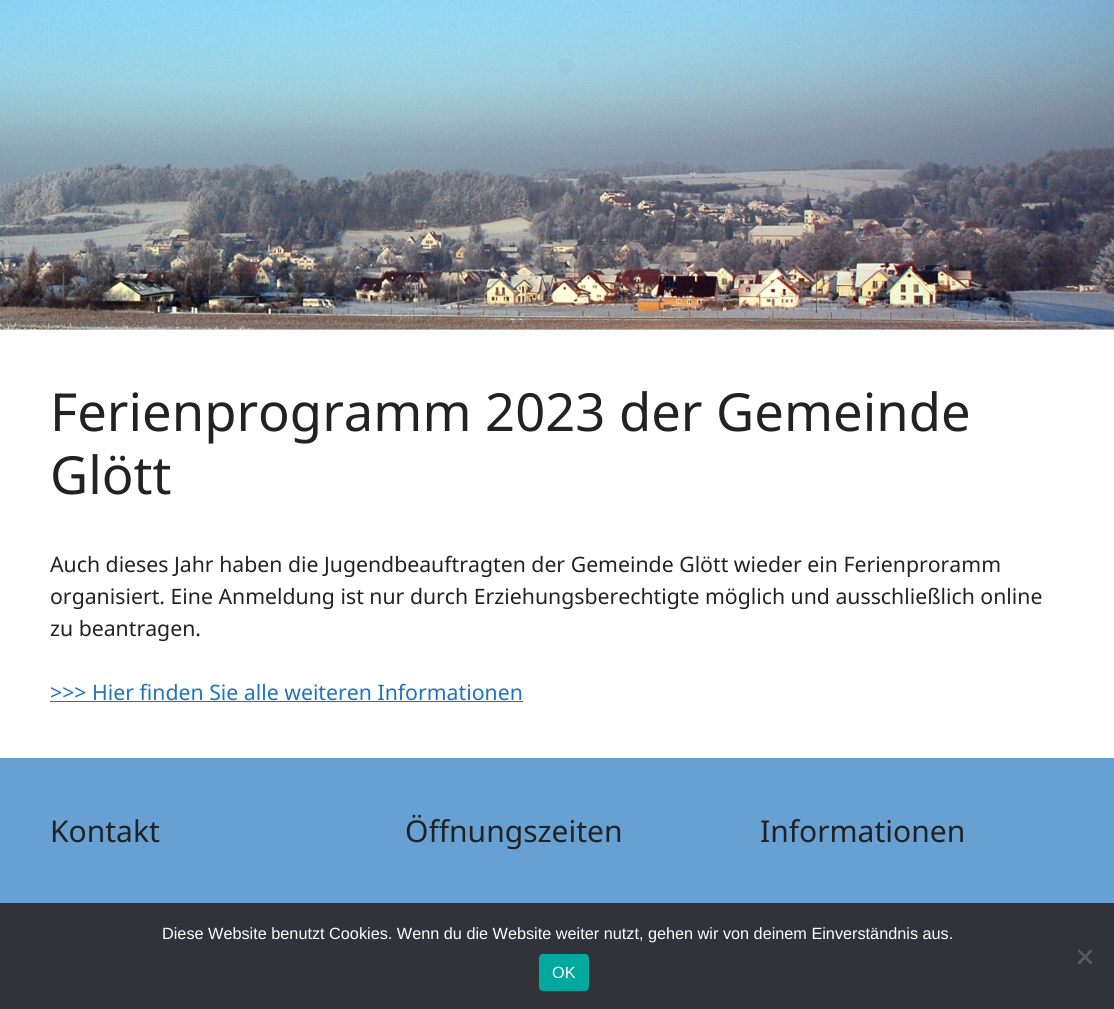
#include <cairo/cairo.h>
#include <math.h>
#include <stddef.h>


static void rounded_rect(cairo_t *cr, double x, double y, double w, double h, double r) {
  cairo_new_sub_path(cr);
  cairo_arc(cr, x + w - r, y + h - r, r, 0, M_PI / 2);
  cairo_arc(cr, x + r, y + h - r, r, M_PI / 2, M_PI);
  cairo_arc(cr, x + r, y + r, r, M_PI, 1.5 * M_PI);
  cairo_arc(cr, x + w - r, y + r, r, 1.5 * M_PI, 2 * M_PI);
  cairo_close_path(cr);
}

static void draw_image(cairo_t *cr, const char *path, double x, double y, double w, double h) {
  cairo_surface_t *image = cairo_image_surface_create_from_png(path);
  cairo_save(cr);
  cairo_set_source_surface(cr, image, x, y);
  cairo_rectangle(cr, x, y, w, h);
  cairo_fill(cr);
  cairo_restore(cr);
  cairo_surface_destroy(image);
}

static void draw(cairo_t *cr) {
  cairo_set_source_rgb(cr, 1, 1, 1);
  cairo_paint(cr);
  cairo_set_source_rgb(cr, 233 / 255.0, 233 / 255.0, 233 / 255.0);
  cairo_rectangle(cr, 0, 329, 1114, 1);
  cairo_fill(cr);
  draw_image(cr, "images/1.png", 0, 0, 1114, 330);
  cairo_set_source_rgb(cr, 30 / 255.0, 115 / 255.0, 190 / 255.0);
  cairo_rectangle(cr, 50, 701, 473, 1);
  cairo_fill(cr);
  cairo_set_source_rgb(cr, 103 / 255.0, 161 / 255.0, 212 / 255.0);
  cairo_rectangle(cr, 0, 758, 1114, 145);
  cairo_fill(cr);
  cairo_set_source_rgb(cr, 50 / 255.0, 50 / 255.0, 58 / 255.0);
  cairo_rectangle(cr, 0, 903, 1114, 106);
  cairo_fill(cr);
  cairo_set_source_rgb(cr, 89 / 255.0, 89 / 255.0, 93 / 255.0);
  cairo_new_path(cr);
  cairo_move_to(cr, 1090.5, 949.5);
  cairo_line_to(cr, 1092.5, 951);
  cairo_line_to(cr, 1079.5, 964.5);
  cairo_line_to(cr, 1077.5, 962.5);
  cairo_close_path(cr);
  cairo_fill(cr);
  cairo_new_path(cr);
  cairo_move_to(cr, 1077.5, 951);
  cairo_line_to(cr, 1079.5, 949.5);
  cairo_line_to(cr, 1092.5, 962.5);
  cairo_line_to(cr, 1090.5, 964.5);
  cairo_close_path(cr);
  cairo_fill(cr);
  cairo_set_source_rgb(cr, 0, 169 / 255.0, 157 / 255.0);
  rounded_rect(cr, 539, 954, 50, 37, 4);
  cairo_fill(cr);
  cairo_select_font_face(cr, "Noto Sans", CAIRO_FONT_SLANT_NORMAL, CAIRO_FONT_WEIGHT_NORMAL);
  cairo_set_font_size(cr, 52.5);
  cairo_set_source_rgb(cr, 34 / 255.0, 34 / 255.0, 34 / 255.0);
  cairo_move_to(cr, 50, 431);
  cairo_show_text(cr, "Ferienprogramm 2023 der Gemeinde");
  cairo_move_to(cr, 50, 494);
  cairo_show_text(cr, "Glött");
  cairo_set_font_size(cr, 21.25);
  cairo_move_to(cr, 50, 572);
  cairo_show_text(cr, "Auch dieses Jahr haben die Jugendbeauftragten der Gemeinde Glött wieder ein Ferienproramm");
  cairo_move_to(cr, 50, 604);
  cairo_show_text(cr, "organisiert. Eine Anmeldung ist nur durch Erziehungsberechtigte möglich und ausschließlich online");
  cairo_move_to(cr, 50, 636);
  cairo_show_text(cr, "zu beantragen.");
  cairo_set_source_rgb(cr, 30 / 255.0, 115 / 255.0, 190 / 255.0);
  cairo_move_to(cr, 50, 700);
  cairo_show_text(cr, ">>> Hier finden Sie alle weiteren Informationen");
  cairo_set_font_size(cr, 30);
  cairo_set_source_rgb(cr, 34 / 255.0, 34 / 255.0, 34 / 255.0);
  cairo_move_to(cr, 50, 842);
  cairo_show_text(cr, "Kontakt");
  cairo_move_to(cr, 405, 842);
  cairo_show_text(cr, "Öffnungszeiten");
  cairo_move_to(cr, 760, 842);
  cairo_show_text(cr, "Informationen");
  cairo_select_font_face(cr, "Liberation Sans", CAIRO_FONT_SLANT_NORMAL, CAIRO_FONT_WEIGHT_NORMAL);
  cairo_set_font_size(cr, 16.25);
  cairo_set_source_rgb(cr, 1, 1, 1);
  cairo_move_to(cr, 162, 939);
  cairo_show_text(cr, "Diese Website benutzt Cookies. Wenn du die Website weiter nutzt, gehen wir von deinem Einverständnis aus.");
  cairo_move_to(cr, 552, 978);
  cairo_show_text(cr, "OK");
}

int main(void) {
  cairo_surface_t *surface = cairo_image_surface_create(CAIRO_FORMAT_RGB24, 1114, 1009);
  cairo_t *cr = cairo_create(surface);
  cairo_font_options_t *options = cairo_font_options_create();
  cairo_font_options_set_hint_metrics(options, CAIRO_HINT_METRICS_OFF);
  cairo_font_options_set_hint_style(options, CAIRO_HINT_STYLE_NONE);
  cairo_set_font_options(cr, options);
  cairo_set_miter_limit(cr, 4);
  draw(cr);
  cairo_surface_write_to_png(surface, "out.png");
  cairo_font_options_destroy(options);
  cairo_destroy(cr);
  cairo_surface_destroy(surface);
  return 0;
}
